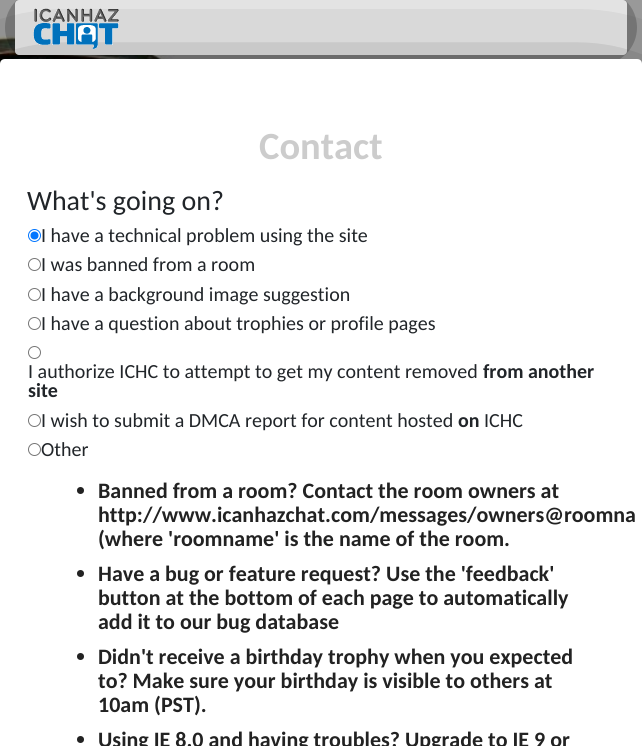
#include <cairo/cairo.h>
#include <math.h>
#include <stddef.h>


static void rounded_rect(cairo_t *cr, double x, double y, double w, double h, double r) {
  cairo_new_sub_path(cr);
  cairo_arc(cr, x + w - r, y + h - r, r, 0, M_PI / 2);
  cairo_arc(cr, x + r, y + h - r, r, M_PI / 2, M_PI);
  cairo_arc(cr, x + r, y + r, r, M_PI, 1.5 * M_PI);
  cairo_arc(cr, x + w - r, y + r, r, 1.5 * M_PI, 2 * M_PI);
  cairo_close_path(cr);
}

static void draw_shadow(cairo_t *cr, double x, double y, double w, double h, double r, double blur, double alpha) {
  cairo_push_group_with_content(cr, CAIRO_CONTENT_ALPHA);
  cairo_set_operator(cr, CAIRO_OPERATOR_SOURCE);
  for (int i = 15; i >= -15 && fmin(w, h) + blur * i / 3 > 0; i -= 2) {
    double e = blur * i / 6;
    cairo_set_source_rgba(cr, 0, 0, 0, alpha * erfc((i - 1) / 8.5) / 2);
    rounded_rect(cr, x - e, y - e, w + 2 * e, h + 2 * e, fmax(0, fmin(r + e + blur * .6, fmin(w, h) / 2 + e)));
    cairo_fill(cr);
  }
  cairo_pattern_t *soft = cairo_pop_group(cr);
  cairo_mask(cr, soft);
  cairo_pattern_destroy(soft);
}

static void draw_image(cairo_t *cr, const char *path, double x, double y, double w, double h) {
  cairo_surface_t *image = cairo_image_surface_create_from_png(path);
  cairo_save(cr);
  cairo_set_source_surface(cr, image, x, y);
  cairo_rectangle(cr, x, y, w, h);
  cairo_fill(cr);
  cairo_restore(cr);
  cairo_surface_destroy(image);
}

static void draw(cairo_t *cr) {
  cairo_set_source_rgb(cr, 1, 1, 1);
  cairo_paint(cr);
  draw_image(cr, "images/1.png", 0, 35, 642, 29);
  cairo_set_source_rgb(cr, 0, 0, 0);
  draw_shadow(cr, 15, 0, 612, 55, 4, 60, 1);
  cairo_set_source_rgb(cr, 238 / 255.0, 238 / 255.0, 238 / 255.0);
  rounded_rect(cr, 15, 0, 612, 55, 4);
  cairo_fill(cr);
  cairo_set_source_rgb(cr, 0, 0, 0);
  draw_shadow(cr, 0, 159, 642, 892, 5, 100, 1);
  draw_image(cr, "images/2.png", 33, 8, 86, 41);
  cairo_set_source_rgb(cr, 1, 1, 1);
  cairo_new_path(cr);
  cairo_move_to(cr, 5, 59);
  cairo_line_to(cr, 637, 59);
  cairo_curve_to(cr, 640, 59, 642, 61, 642, 64);
  cairo_line_to(cr, 642, 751);
  cairo_line_to(cr, 0, 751);
  cairo_line_to(cr, 0, 64);
  cairo_curve_to(cr, 0, 61, 2, 59, 5, 59);
  cairo_close_path(cr);
  cairo_fill(cr);
  cairo_arc(cr, 34.5, 235.5, 6, 0, 2 * M_PI);
  cairo_set_source_rgb(cr, 0, 117 / 255.0, 1);
  cairo_set_line_width(cr, 1);
  cairo_stroke(cr);
  cairo_arc(cr, 34.5, 235.5, 4, 0, 2 * M_PI);
  cairo_fill(cr);
  cairo_arc(cr, 34.5, 264.5, 6, 0, 2 * M_PI);
  cairo_set_source_rgb(cr, 118 / 255.0, 118 / 255.0, 118 / 255.0);
  cairo_stroke(cr);
  cairo_arc(cr, 34.5, 294.5, 6, 0, 2 * M_PI);
  cairo_stroke(cr);
  cairo_arc(cr, 34.5, 323.5, 6, 0, 2 * M_PI);
  cairo_stroke(cr);
  cairo_arc(cr, 34.5, 352.5, 6, 0, 2 * M_PI);
  cairo_stroke(cr);
  cairo_arc(cr, 34.5, 420.5, 6, 0, 2 * M_PI);
  cairo_stroke(cr);
  cairo_arc(cr, 34.5, 449.5, 6, 0, 2 * M_PI);
  cairo_stroke(cr);
  cairo_set_source_rgb(cr, 34 / 255.0, 34 / 255.0, 34 / 255.0);
  cairo_arc(cr, 80.5, 490.5, 3.5, 0, 2 * M_PI);
  cairo_fill(cr);
  cairo_arc(cr, 80.5, 573.5, 3.5, 0, 2 * M_PI);
  cairo_fill(cr);
  cairo_arc(cr, 80.5, 656.5, 3.5, 0, 2 * M_PI);
  cairo_fill(cr);
  cairo_arc(cr, 80.5, 739.5, 3.5, 0, 2 * M_PI);
  cairo_fill(cr);
  cairo_select_font_face(cr, "Carlito", CAIRO_FONT_SLANT_NORMAL, CAIRO_FONT_WEIGHT_BOLD);
  cairo_set_font_size(cr, 38.5);
  cairo_set_source_rgb(cr, 204 / 255.0, 204 / 255.0, 204 / 255.0);
  cairo_move_to(cr, 259, 159);
  cairo_show_text(cr, "Contact");
  cairo_select_font_face(cr, "Carlito", CAIRO_FONT_SLANT_NORMAL, CAIRO_FONT_WEIGHT_NORMAL);
  cairo_set_font_size(cr, 28);
  cairo_set_source_rgb(cr, 33 / 255.0, 37 / 255.0, 41 / 255.0);
  cairo_move_to(cr, 27, 210);
  cairo_show_text(cr, "What's going on?");
  cairo_set_font_size(cr, 20);
  cairo_move_to(cr, 41, 242);
  cairo_show_text(cr, "I have a technical problem using the site");
  cairo_move_to(cr, 41, 271);
  cairo_show_text(cr, "I was banned from a room");
  cairo_move_to(cr, 41, 301);
  cairo_show_text(cr, "I have a background image suggestion");
  cairo_move_to(cr, 41, 330);
  cairo_show_text(cr, "I have a question about trophies or profile pages");
  cairo_move_to(cr, 28, 378);
  cairo_show_text(cr, "I authorize ICHC to attempt to get my content removed");
  cairo_select_font_face(cr, "Carlito", CAIRO_FONT_SLANT_NORMAL, CAIRO_FONT_WEIGHT_BOLD);
  cairo_move_to(cr, 483, 378);
  cairo_show_text(cr, "from another");
  cairo_move_to(cr, 28, 397);
  cairo_show_text(cr, "site");
  cairo_select_font_face(cr, "Carlito", CAIRO_FONT_SLANT_NORMAL, CAIRO_FONT_WEIGHT_NORMAL);
  cairo_move_to(cr, 41, 427);
  cairo_show_text(cr, "I wish to submit a DMCA report for content hosted");
  cairo_select_font_face(cr, "Carlito", CAIRO_FONT_SLANT_NORMAL, CAIRO_FONT_WEIGHT_BOLD);
  cairo_move_to(cr, 458, 427);
  cairo_show_text(cr, "on");
  cairo_select_font_face(cr, "Carlito", CAIRO_FONT_SLANT_NORMAL, CAIRO_FONT_WEIGHT_NORMAL);
  cairo_move_to(cr, 484, 427);
  cairo_show_text(cr, "ICHC");
  cairo_move_to(cr, 41, 456);
  cairo_show_text(cr, "Other");
  cairo_select_font_face(cr, "Carlito", CAIRO_FONT_SLANT_NORMAL, CAIRO_FONT_WEIGHT_BOLD);
  cairo_set_font_size(cr, 22);
  cairo_set_source_rgb(cr, 34 / 255.0, 34 / 255.0, 34 / 255.0);
  cairo_move_to(cr, 98, 498);
  cairo_show_text(cr, "Banned from a room? Contact the room owners at");
  cairo_move_to(cr, 98, 522);
  cairo_show_text(cr, "http://www.icanhazchat.com/messages/owners@roomna");
  cairo_move_to(cr, 98, 546);
  cairo_show_text(cr, "(where 'roomname' is the name of the room.");
  cairo_move_to(cr, 98, 581);
  cairo_show_text(cr, "Have a bug or feature request? Use the 'feedback'");
  cairo_move_to(cr, 98, 605);
  cairo_show_text(cr, "button at the bottom of each page to automatically");
  cairo_move_to(cr, 98, 629);
  cairo_show_text(cr, "add it to our bug database");
  cairo_move_to(cr, 98, 664);
  cairo_show_text(cr, "Didn't receive a birthday trophy when you expected");
  cairo_move_to(cr, 98, 688);
  cairo_show_text(cr, "to? Make sure your birthday is visible to others at");
  cairo_move_to(cr, 98, 712);
  cairo_show_text(cr, "10am (PST).");
  cairo_move_to(cr, 98, 747);
  cairo_show_text(cr, "Using IE 8.0 and having troubles? Upgrade to IE 9 or");
}

int main(void) {
  cairo_surface_t *surface = cairo_image_surface_create(CAIRO_FORMAT_RGB24, 642, 746);
  cairo_t *cr = cairo_create(surface);
  cairo_font_options_t *options = cairo_font_options_create();
  cairo_font_options_set_hint_metrics(options, CAIRO_HINT_METRICS_OFF);
  cairo_font_options_set_hint_style(options, CAIRO_HINT_STYLE_NONE);
  cairo_set_font_options(cr, options);
  cairo_set_miter_limit(cr, 4);
  draw(cr);
  cairo_surface_write_to_png(surface, "out.png");
  cairo_font_options_destroy(options);
  cairo_destroy(cr);
  cairo_surface_destroy(surface);
  return 0;
}
